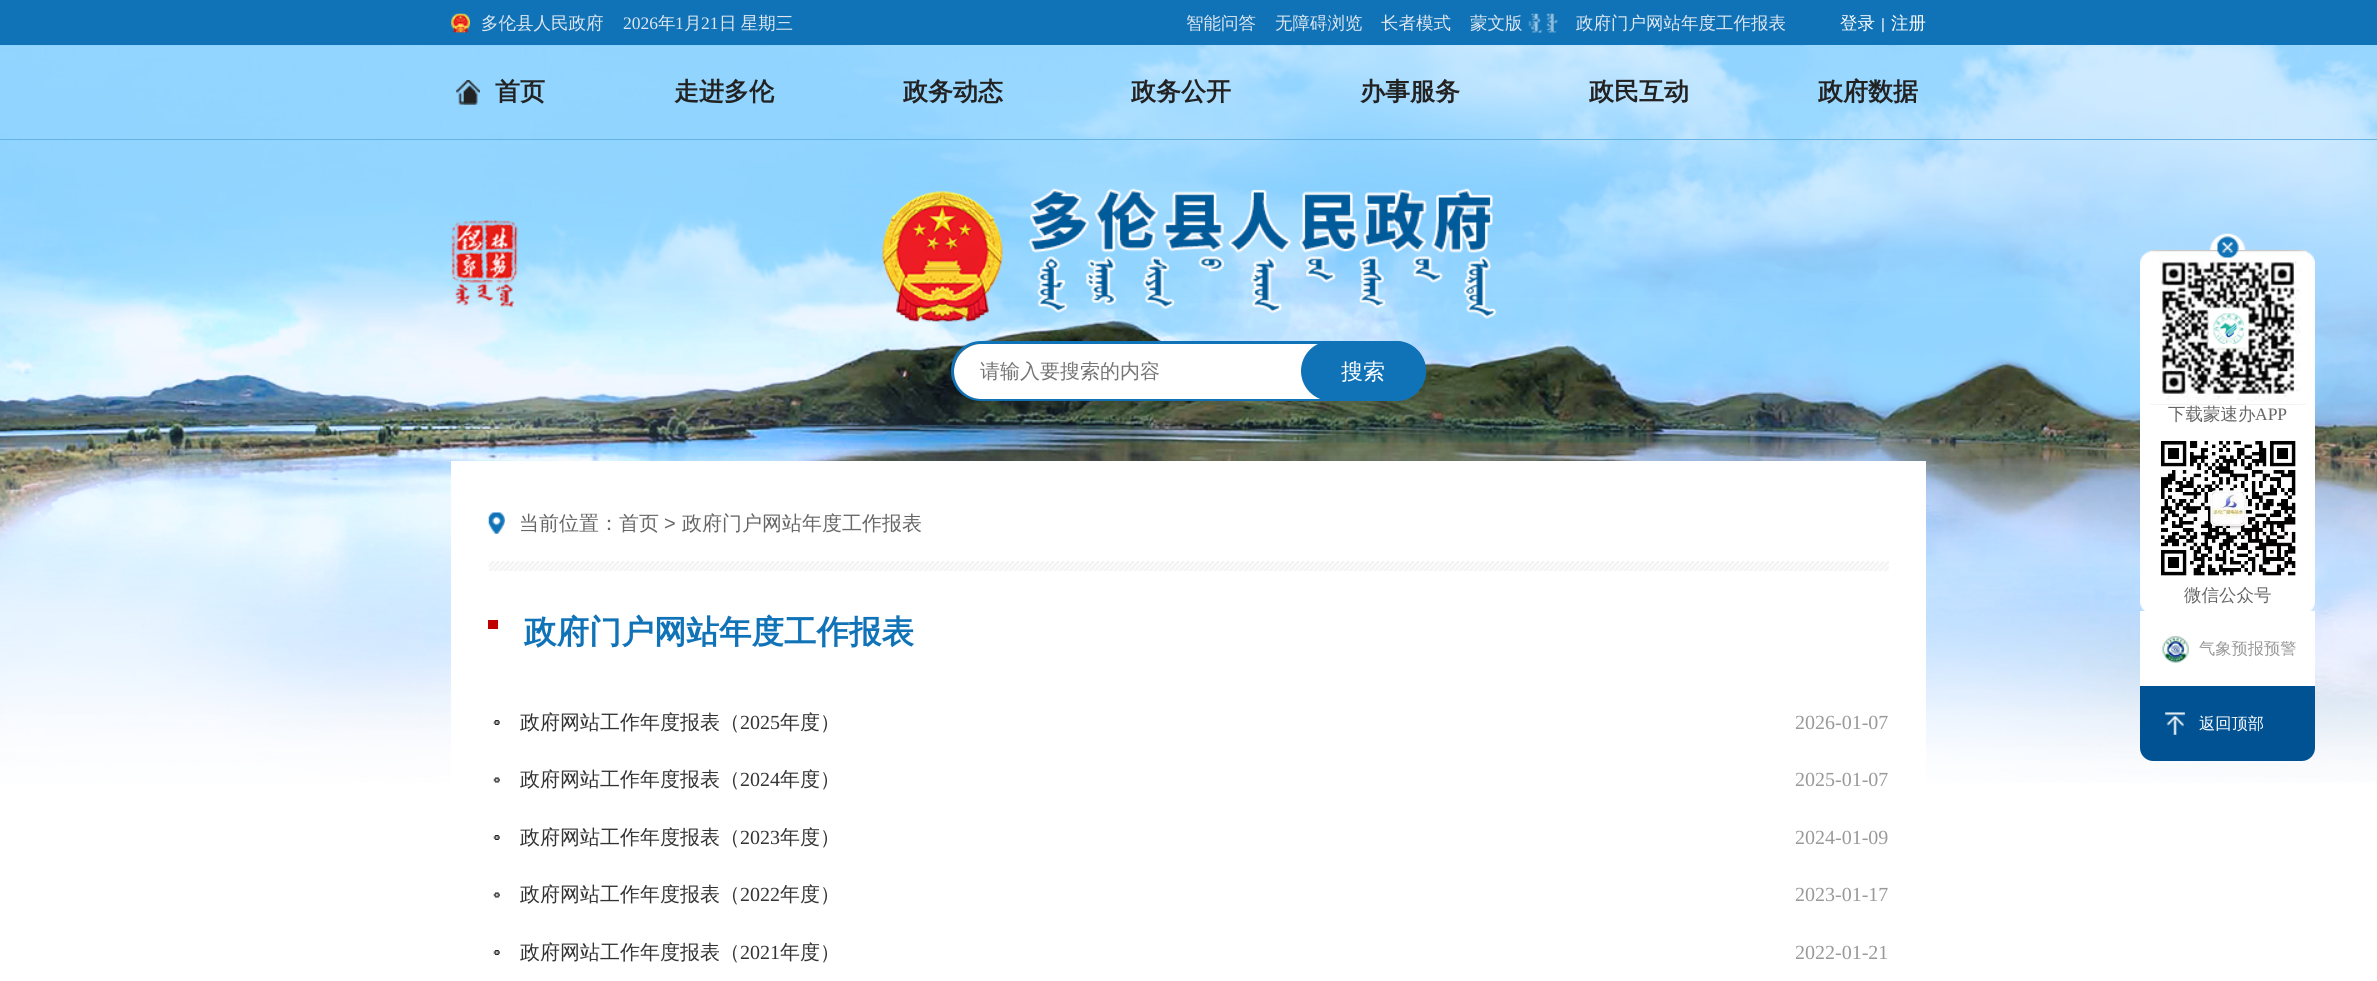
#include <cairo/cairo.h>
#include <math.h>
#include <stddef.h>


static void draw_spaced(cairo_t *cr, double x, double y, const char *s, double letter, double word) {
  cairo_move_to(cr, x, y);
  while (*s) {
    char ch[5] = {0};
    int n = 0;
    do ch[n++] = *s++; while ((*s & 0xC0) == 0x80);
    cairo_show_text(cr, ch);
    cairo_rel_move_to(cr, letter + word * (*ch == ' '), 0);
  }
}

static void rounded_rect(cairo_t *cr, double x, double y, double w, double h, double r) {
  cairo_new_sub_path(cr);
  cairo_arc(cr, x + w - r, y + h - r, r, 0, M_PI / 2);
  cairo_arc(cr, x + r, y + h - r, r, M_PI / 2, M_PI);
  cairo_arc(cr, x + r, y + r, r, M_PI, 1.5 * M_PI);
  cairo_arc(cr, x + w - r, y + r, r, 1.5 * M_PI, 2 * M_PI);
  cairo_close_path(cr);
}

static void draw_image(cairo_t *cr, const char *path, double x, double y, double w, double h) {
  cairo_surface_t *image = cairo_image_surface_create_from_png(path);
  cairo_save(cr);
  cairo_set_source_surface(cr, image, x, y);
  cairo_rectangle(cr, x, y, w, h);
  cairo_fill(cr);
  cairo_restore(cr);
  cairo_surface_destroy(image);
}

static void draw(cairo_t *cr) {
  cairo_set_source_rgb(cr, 1, 1, 1);
  cairo_paint(cr);
  draw_image(cr, "images/1.png", 0, 45, 2377, 738);
  cairo_set_source_rgb(cr, 16 / 255.0, 115 / 255.0, 183 / 255.0);
  cairo_rectangle(cr, 0, 0, 2377, 45);
  cairo_fill(cr);
  draw_image(cr, "images/2.png", 451, 13, 19, 20);
  draw_image(cr, "images/3.png", 1528, 13, 30, 20);
  cairo_set_source_rgb(cr, 102 / 255.0, 178 / 255.0, 226 / 255.0);
  cairo_rectangle(cr, 0, 139, 2377, 1);
  cairo_fill(cr);
  draw_image(cr, "images/4.png", 456, 80, 24, 25);
  draw_image(cr, "images/5.png", 451, 220, 67, 88);
  draw_image(cr, "images/6.png", 882, 188, 615, 134);
  rounded_rect(cr, 952.5, 342.5, 472, 57, 28.5);
  cairo_set_source_rgb(cr, 16 / 255.0, 115 / 255.0, 183 / 255.0);
  cairo_set_line_width(cr, 3);
  cairo_stroke(cr);
  cairo_set_source_rgb(cr, 1, 1, 1);
  rounded_rect(cr, 954, 344, 470, 55, 27.5);
  cairo_fill(cr);
  cairo_set_source_rgb(cr, 16 / 255.0, 115 / 255.0, 183 / 255.0);
  rounded_rect(cr, 1301, 341, 125, 60, 30);
  cairo_fill(cr);
  cairo_set_source_rgb(cr, 1, 1, 1);
  cairo_rectangle(cr, 451, 461, 1475, 322);
  cairo_fill(cr);
  draw_image(cr, "images/7.png", 488, 561, 1401, 10);
  draw_image(cr, "images/8.png", 488, 512, 17, 22);
  cairo_set_source_rgb(cr, 190 / 255.0, 0, 0);
  cairo_rectangle(cr, 488, 620, 10, 9);
  cairo_fill(cr);
  draw_image(cr, "images/9.png", 493, 720, 7, 5);
  draw_image(cr, "images/10.png", 493, 777, 7, 6);
  draw_image(cr, "images/9.png", 493, 835, 7, 5);
  draw_image(cr, "images/10.png", 493, 892, 7, 6);
  draw_image(cr, "images/9.png", 493, 950, 7, 5);
  draw_image(cr, "images/11.png", 2140, 233, 175, 378);
  draw_image(cr, "images/13.png", 2150, 250, 157, 155);
  draw_image(cr, "images/12.png", 2217, 236, 22, 22);
  draw_image(cr, "images/14.png", 2160, 440, 136, 136);
  cairo_set_source_rgb(cr, 1, 1, 1);
  cairo_rectangle(cr, 2140, 611, 175, 75);
  cairo_fill(cr);
  draw_image(cr, "images/15.png", 2162, 636, 27, 27);
  cairo_set_source_rgb(cr, 1 / 255.0, 82 / 255.0, 147 / 255.0);
  cairo_new_path(cr);
  cairo_move_to(cr, 2140, 686);
  cairo_line_to(cr, 2315, 686);
  cairo_line_to(cr, 2315, 748);
  cairo_curve_to(cr, 2315, 755, 2309, 761, 2302, 761);
  cairo_line_to(cr, 2153, 761);
  cairo_curve_to(cr, 2146, 761, 2140, 755, 2140, 748);
  cairo_close_path(cr);
  cairo_fill(cr);
  draw_image(cr, "images/16.png", 2165, 712, 20, 23);
  cairo_select_font_face(cr, "WenQuanYi Zen Hei Medium", CAIRO_FONT_SLANT_NORMAL, CAIRO_FONT_WEIGHT_NORMAL);
  cairo_set_font_size(cr, 17.5);
  cairo_set_source_rgb(cr, 222 / 255.0, 231 / 255.0, 242 / 255.0);
  cairo_move_to(cr, 481, 29);
  cairo_show_text(cr, "多伦县人民政府");
  cairo_select_font_face(cr, "Liberation Serif", CAIRO_FONT_SLANT_NORMAL, CAIRO_FONT_WEIGHT_NORMAL);
  cairo_move_to(cr, 623, 29);
  cairo_show_text(cr, "2026");
  cairo_select_font_face(cr, "WenQuanYi Zen Hei Medium", CAIRO_FONT_SLANT_NORMAL, CAIRO_FONT_WEIGHT_NORMAL);
  cairo_move_to(cr, 658, 29);
  cairo_show_text(cr, "年");
  cairo_select_font_face(cr, "Liberation Serif", CAIRO_FONT_SLANT_NORMAL, CAIRO_FONT_WEIGHT_NORMAL);
  cairo_move_to(cr, 675, 29);
  cairo_show_text(cr, "1");
  cairo_select_font_face(cr, "WenQuanYi Zen Hei Medium", CAIRO_FONT_SLANT_NORMAL, CAIRO_FONT_WEIGHT_NORMAL);
  cairo_move_to(cr, 684, 29);
  cairo_show_text(cr, "月");
  cairo_select_font_face(cr, "Liberation Serif", CAIRO_FONT_SLANT_NORMAL, CAIRO_FONT_WEIGHT_NORMAL);
  cairo_move_to(cr, 701, 29);
  cairo_show_text(cr, "21");
  cairo_select_font_face(cr, "WenQuanYi Zen Hei Medium", CAIRO_FONT_SLANT_NORMAL, CAIRO_FONT_WEIGHT_NORMAL);
  draw_spaced(cr, 719, 29, "日 星期三", 0, -1);
  cairo_move_to(cr, 1186, 29);
  cairo_show_text(cr, "智能问答");
  cairo_move_to(cr, 1275, 29);
  cairo_show_text(cr, "无障碍浏览");
  cairo_move_to(cr, 1381, 29);
  cairo_show_text(cr, "长者模式");
  cairo_move_to(cr, 1470, 29);
  cairo_show_text(cr, "蒙文版");
  cairo_move_to(cr, 1576, 29);
  cairo_show_text(cr, "政府门户网站年度工作报表");
  cairo_set_source_rgb(cr, 1, 1, 1);
  cairo_move_to(cr, 1840, 29);
  cairo_show_text(cr, "登录");
  cairo_select_font_face(cr, "Liberation Sans", CAIRO_FONT_SLANT_NORMAL, CAIRO_FONT_WEIGHT_NORMAL);
  cairo_set_font_size(cr, 15);
  cairo_move_to(cr, 1881, 29);
  cairo_show_text(cr, "|");
  cairo_select_font_face(cr, "WenQuanYi Zen Hei Medium", CAIRO_FONT_SLANT_NORMAL, CAIRO_FONT_WEIGHT_NORMAL);
  cairo_set_font_size(cr, 17.5);
  cairo_move_to(cr, 1891, 29);
  cairo_show_text(cr, "注册");
  cairo_select_font_face(cr, "WenQuanYi Zen Hei", CAIRO_FONT_SLANT_NORMAL, CAIRO_FONT_WEIGHT_BOLD);
  cairo_set_font_size(cr, 25);
  cairo_set_source_rgb(cr, 34 / 255.0, 34 / 255.0, 34 / 255.0);
  cairo_move_to(cr, 495, 100);
  cairo_show_text(cr, "首页");
  cairo_move_to(cr, 674, 100);
  cairo_show_text(cr, "走进多伦");
  cairo_move_to(cr, 903, 100);
  cairo_show_text(cr, "政务动态");
  cairo_move_to(cr, 1131, 100);
  cairo_show_text(cr, "政务公开");
  cairo_move_to(cr, 1360, 100);
  cairo_show_text(cr, "办事服务");
  cairo_move_to(cr, 1589, 100);
  cairo_show_text(cr, "政民互动");
  cairo_move_to(cr, 1818, 100);
  cairo_show_text(cr, "政府数据");
  cairo_select_font_face(cr, "WenQuanYi Zen Hei Medium", CAIRO_FONT_SLANT_NORMAL, CAIRO_FONT_WEIGHT_NORMAL);
  cairo_set_font_size(cr, 20);
  cairo_set_source_rgb(cr, 117 / 255.0, 117 / 255.0, 117 / 255.0);
  cairo_move_to(cr, 980, 378);
  cairo_show_text(cr, "请输入要搜索的内容");
  cairo_set_font_size(cr, 22);
  cairo_set_source_rgb(cr, 1, 1, 1);
  cairo_move_to(cr, 1341, 379);
  cairo_show_text(cr, "搜索");
  cairo_set_font_size(cr, 20);
  cairo_set_source_rgb(cr, 102 / 255.0, 102 / 255.0, 102 / 255.0);
  cairo_move_to(cr, 519, 530);
  cairo_show_text(cr, "当前位置：首页");
  cairo_select_font_face(cr, "Liberation Sans", CAIRO_FONT_SLANT_NORMAL, CAIRO_FONT_WEIGHT_NORMAL);
  cairo_move_to(cr, 664, 530);
  cairo_show_text(cr, ">");
  cairo_select_font_face(cr, "WenQuanYi Zen Hei Medium", CAIRO_FONT_SLANT_NORMAL, CAIRO_FONT_WEIGHT_NORMAL);
  cairo_move_to(cr, 682, 530);
  cairo_show_text(cr, "政府门户网站年度工作报表");
  cairo_select_font_face(cr, "WenQuanYi Zen Hei", CAIRO_FONT_SLANT_NORMAL, CAIRO_FONT_WEIGHT_BOLD);
  cairo_set_font_size(cr, 32.5);
  cairo_set_source_rgb(cr, 16 / 255.0, 115 / 255.0, 183 / 255.0);
  cairo_move_to(cr, 524, 643);
  cairo_show_text(cr, "政府门户网站年度工作报表");
  cairo_select_font_face(cr, "WenQuanYi Zen Hei Medium", CAIRO_FONT_SLANT_NORMAL, CAIRO_FONT_WEIGHT_NORMAL);
  cairo_set_font_size(cr, 20);
  cairo_set_source_rgb(cr, 51 / 255.0, 51 / 255.0, 51 / 255.0);
  cairo_move_to(cr, 520, 729);
  cairo_show_text(cr, "政府网站工作年度报表（");
  cairo_select_font_face(cr, "Liberation Serif", CAIRO_FONT_SLANT_NORMAL, CAIRO_FONT_WEIGHT_NORMAL);
  cairo_move_to(cr, 740, 729);
  cairo_show_text(cr, "2025");
  cairo_select_font_face(cr, "WenQuanYi Zen Hei Medium", CAIRO_FONT_SLANT_NORMAL, CAIRO_FONT_WEIGHT_NORMAL);
  cairo_move_to(cr, 780, 729);
  cairo_show_text(cr, "年度）");
  cairo_select_font_face(cr, "Liberation Serif", CAIRO_FONT_SLANT_NORMAL, CAIRO_FONT_WEIGHT_NORMAL);
  cairo_set_source_rgb(cr, 153 / 255.0, 153 / 255.0, 153 / 255.0);
  cairo_move_to(cr, 1795, 729);
  cairo_show_text(cr, "2026-01-07");
  cairo_select_font_face(cr, "WenQuanYi Zen Hei Medium", CAIRO_FONT_SLANT_NORMAL, CAIRO_FONT_WEIGHT_NORMAL);
  cairo_set_source_rgb(cr, 51 / 255.0, 51 / 255.0, 51 / 255.0);
  cairo_move_to(cr, 520, 786);
  cairo_show_text(cr, "政府网站工作年度报表（");
  cairo_select_font_face(cr, "Liberation Serif", CAIRO_FONT_SLANT_NORMAL, CAIRO_FONT_WEIGHT_NORMAL);
  cairo_move_to(cr, 740, 786);
  cairo_show_text(cr, "2024");
  cairo_select_font_face(cr, "WenQuanYi Zen Hei Medium", CAIRO_FONT_SLANT_NORMAL, CAIRO_FONT_WEIGHT_NORMAL);
  cairo_move_to(cr, 780, 786);
  cairo_show_text(cr, "年度）");
  cairo_select_font_face(cr, "Liberation Serif", CAIRO_FONT_SLANT_NORMAL, CAIRO_FONT_WEIGHT_NORMAL);
  cairo_set_source_rgb(cr, 153 / 255.0, 153 / 255.0, 153 / 255.0);
  cairo_move_to(cr, 1795, 786);
  cairo_show_text(cr, "2025-01-07");
  cairo_select_font_face(cr, "WenQuanYi Zen Hei Medium", CAIRO_FONT_SLANT_NORMAL, CAIRO_FONT_WEIGHT_NORMAL);
  cairo_set_source_rgb(cr, 51 / 255.0, 51 / 255.0, 51 / 255.0);
  cairo_move_to(cr, 520, 844);
  cairo_show_text(cr, "政府网站工作年度报表（");
  cairo_select_font_face(cr, "Liberation Serif", CAIRO_FONT_SLANT_NORMAL, CAIRO_FONT_WEIGHT_NORMAL);
  cairo_move_to(cr, 740, 844);
  cairo_show_text(cr, "2023");
  cairo_select_font_face(cr, "WenQuanYi Zen Hei Medium", CAIRO_FONT_SLANT_NORMAL, CAIRO_FONT_WEIGHT_NORMAL);
  cairo_move_to(cr, 780, 844);
  cairo_show_text(cr, "年度）");
  cairo_select_font_face(cr, "Liberation Serif", CAIRO_FONT_SLANT_NORMAL, CAIRO_FONT_WEIGHT_NORMAL);
  cairo_set_source_rgb(cr, 153 / 255.0, 153 / 255.0, 153 / 255.0);
  cairo_move_to(cr, 1795, 844);
  cairo_show_text(cr, "2024-01-09");
  cairo_select_font_face(cr, "WenQuanYi Zen Hei Medium", CAIRO_FONT_SLANT_NORMAL, CAIRO_FONT_WEIGHT_NORMAL);
  cairo_set_source_rgb(cr, 51 / 255.0, 51 / 255.0, 51 / 255.0);
  cairo_move_to(cr, 520, 901);
  cairo_show_text(cr, "政府网站工作年度报表（");
  cairo_select_font_face(cr, "Liberation Serif", CAIRO_FONT_SLANT_NORMAL, CAIRO_FONT_WEIGHT_NORMAL);
  cairo_move_to(cr, 740, 901);
  cairo_show_text(cr, "2022");
  cairo_select_font_face(cr, "WenQuanYi Zen Hei Medium", CAIRO_FONT_SLANT_NORMAL, CAIRO_FONT_WEIGHT_NORMAL);
  cairo_move_to(cr, 780, 901);
  cairo_show_text(cr, "年度）");
  cairo_select_font_face(cr, "Liberation Serif", CAIRO_FONT_SLANT_NORMAL, CAIRO_FONT_WEIGHT_NORMAL);
  cairo_set_source_rgb(cr, 153 / 255.0, 153 / 255.0, 153 / 255.0);
  cairo_move_to(cr, 1795, 901);
  cairo_show_text(cr, "2023-01-17");
  cairo_select_font_face(cr, "WenQuanYi Zen Hei Medium", CAIRO_FONT_SLANT_NORMAL, CAIRO_FONT_WEIGHT_NORMAL);
  cairo_set_source_rgb(cr, 51 / 255.0, 51 / 255.0, 51 / 255.0);
  cairo_move_to(cr, 520, 959);
  cairo_show_text(cr, "政府网站工作年度报表（");
  cairo_select_font_face(cr, "Liberation Serif", CAIRO_FONT_SLANT_NORMAL, CAIRO_FONT_WEIGHT_NORMAL);
  cairo_move_to(cr, 740, 959);
  cairo_show_text(cr, "2021");
  cairo_select_font_face(cr, "WenQuanYi Zen Hei Medium", CAIRO_FONT_SLANT_NORMAL, CAIRO_FONT_WEIGHT_NORMAL);
  cairo_move_to(cr, 780, 959);
  cairo_show_text(cr, "年度）");
  cairo_select_font_face(cr, "Liberation Serif", CAIRO_FONT_SLANT_NORMAL, CAIRO_FONT_WEIGHT_NORMAL);
  cairo_set_source_rgb(cr, 153 / 255.0, 153 / 255.0, 153 / 255.0);
  cairo_move_to(cr, 1795, 959);
  cairo_show_text(cr, "2022-01-21");
  cairo_select_font_face(cr, "WenQuanYi Zen Hei Medium", CAIRO_FONT_SLANT_NORMAL, CAIRO_FONT_WEIGHT_NORMAL);
  cairo_set_font_size(cr, 17.5);
  cairo_set_source_rgb(cr, 102 / 255.0, 102 / 255.0, 102 / 255.0);
  cairo_move_to(cr, 2168, 420);
  cairo_show_text(cr, "下载蒙速办");
  cairo_select_font_face(cr, "Liberation Serif", CAIRO_FONT_SLANT_NORMAL, CAIRO_FONT_WEIGHT_NORMAL);
  cairo_move_to(cr, 2255, 420);
  cairo_show_text(cr, "APP");
  cairo_select_font_face(cr, "WenQuanYi Zen Hei Medium", CAIRO_FONT_SLANT_NORMAL, CAIRO_FONT_WEIGHT_NORMAL);
  cairo_move_to(cr, 2184, 601);
  cairo_show_text(cr, "微信公众号");
  cairo_set_font_size(cr, 16.25);
  cairo_set_source_rgb(cr, 153 / 255.0, 153 / 255.0, 153 / 255.0);
  cairo_move_to(cr, 2199, 654);
  cairo_show_text(cr, "气象预报预警");
  cairo_set_source_rgb(cr, 1, 1, 1);
  cairo_move_to(cr, 2199, 729);
  cairo_show_text(cr, "返回顶部");
}

int main(void) {
  cairo_surface_t *surface = cairo_image_surface_create(CAIRO_FORMAT_RGB24, 2377, 981);
  cairo_t *cr = cairo_create(surface);
  cairo_font_options_t *options = cairo_font_options_create();
  cairo_font_options_set_hint_metrics(options, CAIRO_HINT_METRICS_OFF);
  cairo_font_options_set_hint_style(options, CAIRO_HINT_STYLE_NONE);
  cairo_set_font_options(cr, options);
  cairo_set_miter_limit(cr, 4);
  draw(cr);
  cairo_surface_write_to_png(surface, "out.png");
  cairo_font_options_destroy(options);
  cairo_destroy(cr);
  cairo_surface_destroy(surface);
  return 0;
}
